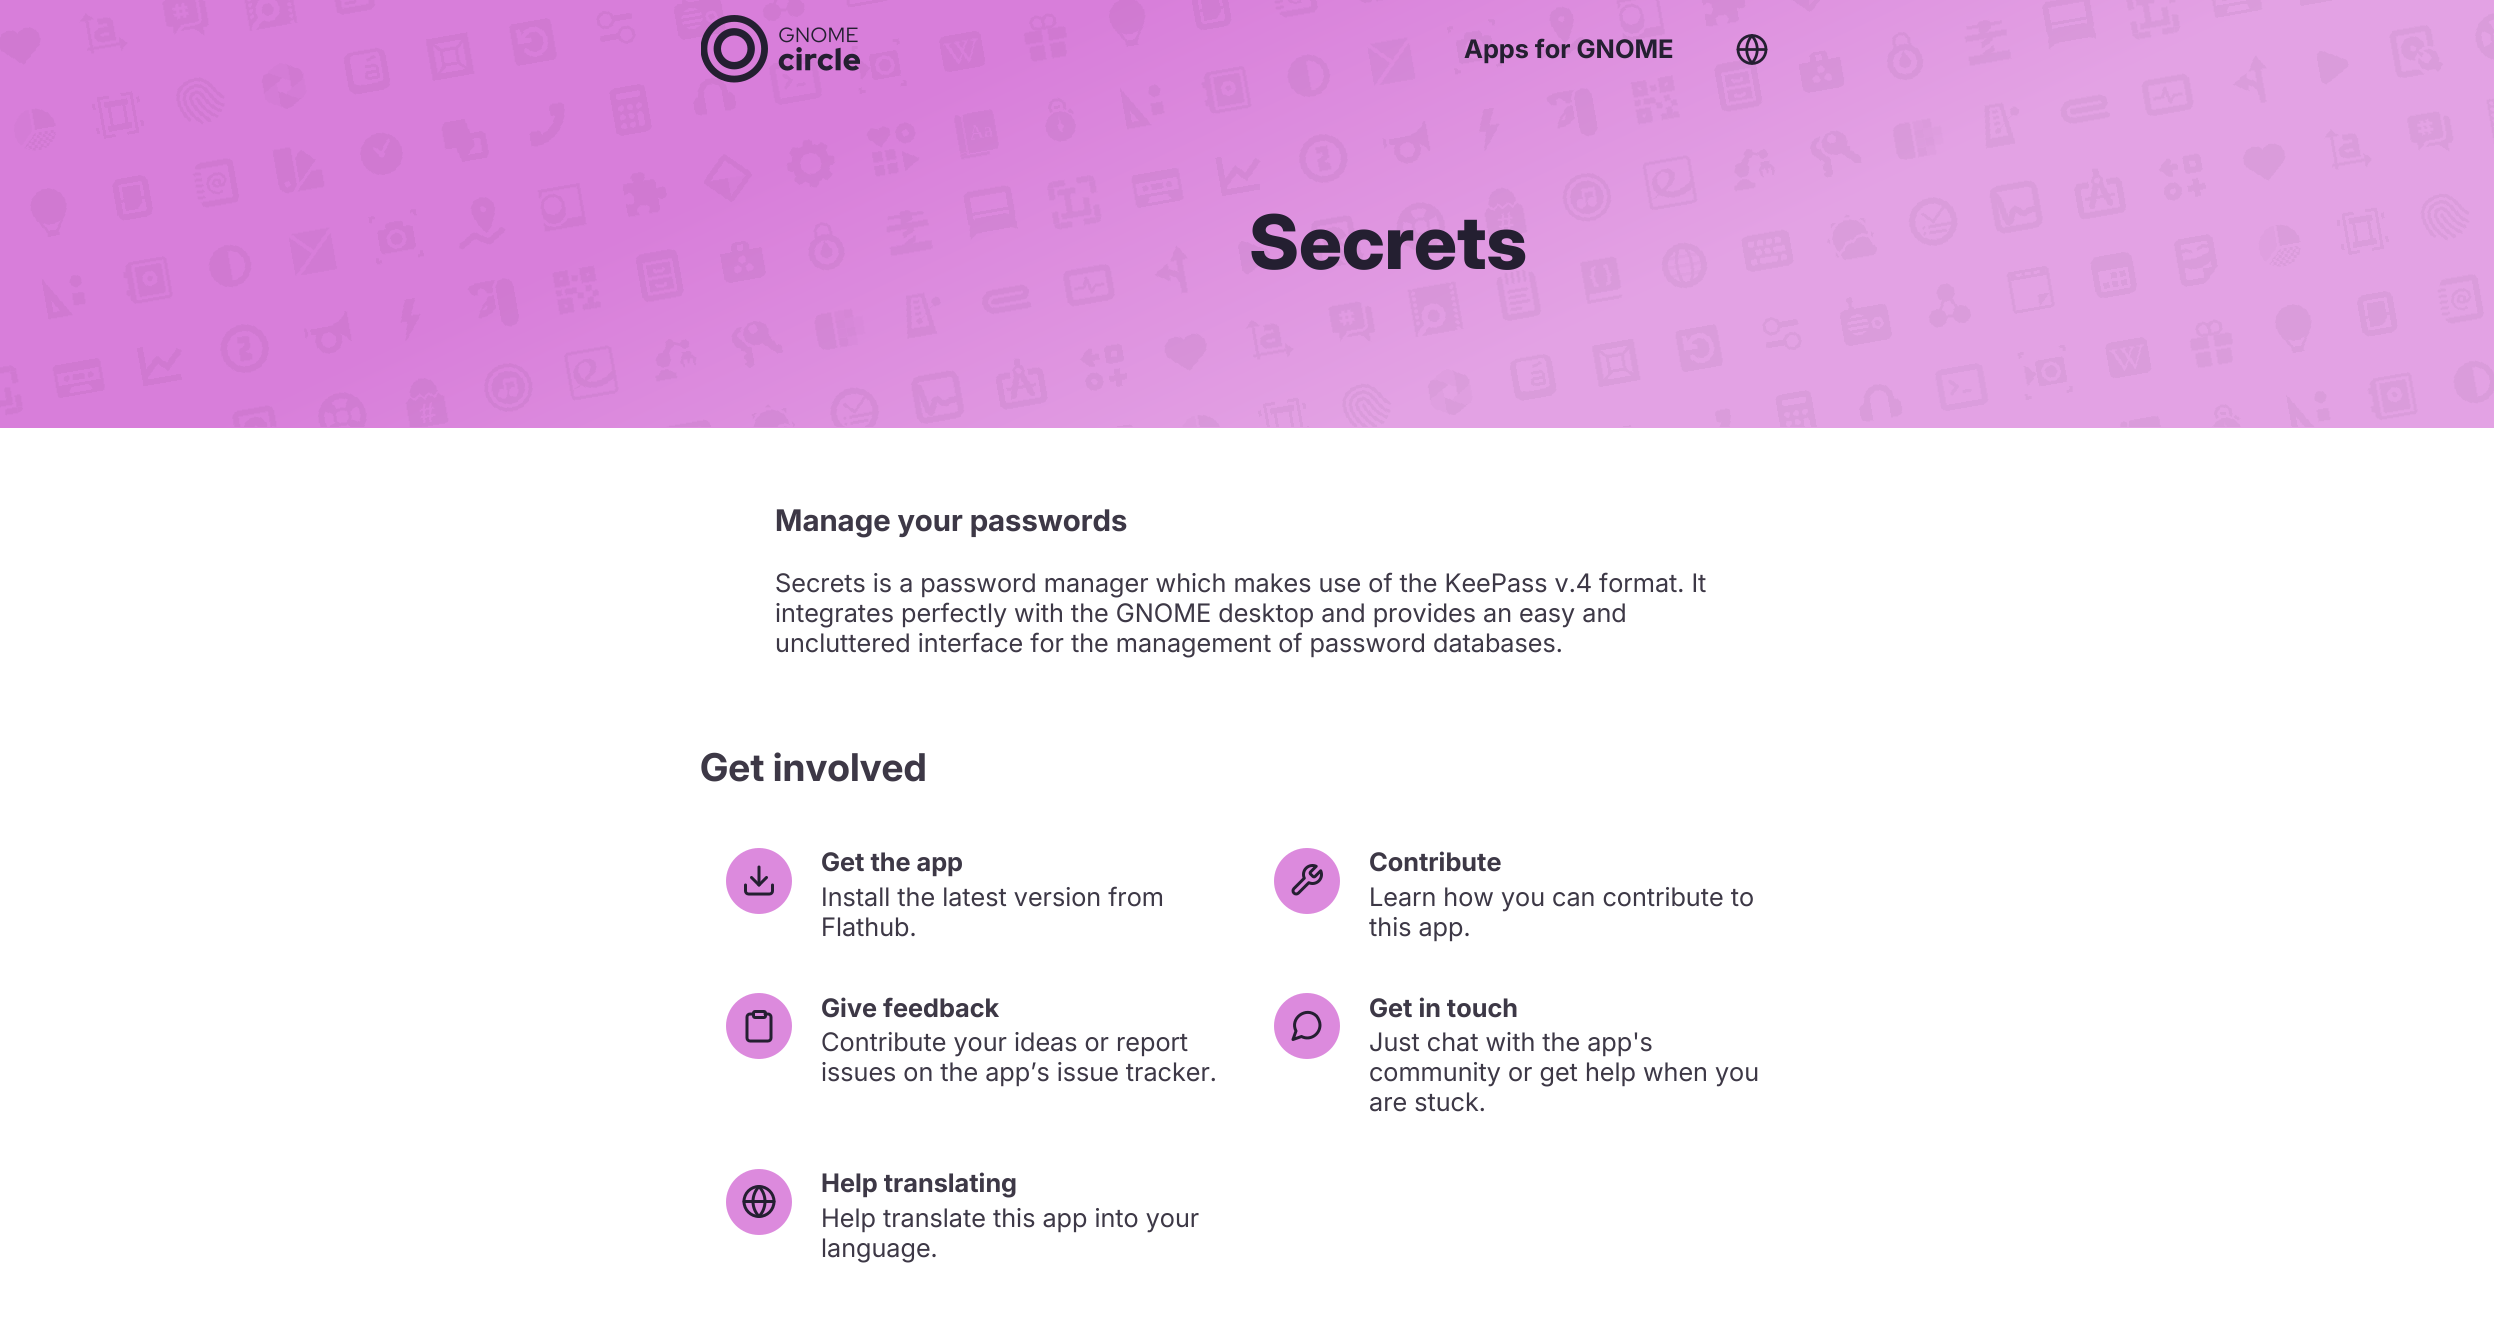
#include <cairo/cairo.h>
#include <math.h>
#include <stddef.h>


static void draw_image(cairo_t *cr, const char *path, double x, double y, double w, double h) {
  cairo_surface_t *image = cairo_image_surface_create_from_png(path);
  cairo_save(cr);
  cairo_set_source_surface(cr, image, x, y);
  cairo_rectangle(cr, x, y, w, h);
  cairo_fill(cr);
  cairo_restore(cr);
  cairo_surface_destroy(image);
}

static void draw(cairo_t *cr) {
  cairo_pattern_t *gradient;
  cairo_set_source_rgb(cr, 1, 1, 1);
  cairo_paint(cr);
  gradient = cairo_pattern_create_linear(1552, 867, 943, -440);
  cairo_pattern_add_color_stop_rgba(gradient, 0, 227 / 255.0, 162 / 255.0, 228 / 255.0, 1);
  cairo_pattern_add_color_stop_rgba(gradient, 0.33, 227 / 255.0, 162 / 255.0, 228 / 255.0, 1);
  cairo_pattern_add_color_stop_rgba(gradient, 0.67, 216 / 255.0, 126 / 255.0, 218 / 255.0, 1);
  cairo_pattern_add_color_stop_rgba(gradient, 1, 216 / 255.0, 126 / 255.0, 218 / 255.0, 1);
  cairo_set_source(cr, gradient);
  cairo_pattern_destroy(gradient);
  cairo_rectangle(cr, 0, 0, 2494, 428);
  cairo_fill(cr);
  draw_image(cr, "images/1.png", 0, 0, 2494, 427);
  draw_image(cr, "images/2.png", 701, 15, 159, 68);
  cairo_arc(cr, 1752, 49.5, 14, 0, 2 * M_PI);
  cairo_set_source_rgb(cr, 36 / 255.0, 31 / 255.0, 49 / 255.0);
  cairo_set_line_width(cr, 2.8);
  cairo_stroke(cr);
  cairo_new_path(cr);
  cairo_move_to(cr, 1738, 49.5);
  cairo_line_to(cr, 1766, 49.5);
  cairo_move_to(cr, 1752, 36);
  cairo_curve_to(cr, 1759, 43.5, 1759, 55.5, 1752, 63);
  cairo_curve_to(cr, 1745, 55.5, 1745, 43.5, 1752, 35.5);
  cairo_close_path(cr);
  cairo_set_line_cap(cr, CAIRO_LINE_CAP_ROUND);
  cairo_set_line_join(cr, CAIRO_LINE_JOIN_ROUND);
  cairo_stroke(cr);
  cairo_set_source_rgb(cr, 220 / 255.0, 138 / 255.0, 221 / 255.0);
  cairo_arc(cr, 759, 881, 33, 0, 2 * M_PI);
  cairo_fill(cr);
  draw_image(cr, "images/3.png", 744, 865, 30, 31);
  cairo_arc(cr, 1307, 881, 33, 0, 2 * M_PI);
  cairo_fill(cr);
  draw_image(cr, "images/4.png", 1291, 864, 32, 32);
  cairo_arc(cr, 759, 1026, 33, 0, 2 * M_PI);
  cairo_fill(cr);
  draw_image(cr, "images/5.png", 745, 1010, 28, 33);
  cairo_arc(cr, 1307, 1026, 33, 0, 2 * M_PI);
  cairo_fill(cr);
  cairo_new_path(cr);
  cairo_move_to(cr, 1320, 1025);
  cairo_curve_to(cr, 1320, 1034.5, 1310, 1041, 1301.5, 1036.5);
  cairo_line_to(cr, 1293, 1039.5);
  cairo_line_to(cr, 1296, 1031);
  cairo_curve_to(cr, 1289.5, 1018.5, 1306, 1006, 1316.5, 1016);
  cairo_curve_to(cr, 1318.5, 1018.5, 1320, 1022, 1320, 1025);
  cairo_close_path(cr);
  cairo_set_source_rgb(cr, 36 / 255.0, 31 / 255.0, 49 / 255.0);
  cairo_set_line_width(cr, 3);
  cairo_stroke(cr);
  cairo_set_source_rgb(cr, 220 / 255.0, 138 / 255.0, 221 / 255.0);
  cairo_arc(cr, 759, 1202, 33, 0, 2 * M_PI);
  cairo_fill(cr);
  cairo_arc(cr, 759, 1201.5, 15, 0, 2 * M_PI);
  cairo_set_source_rgb(cr, 36 / 255.0, 31 / 255.0, 49 / 255.0);
  cairo_set_line_cap(cr, CAIRO_LINE_CAP_BUTT);
  cairo_set_line_join(cr, CAIRO_LINE_JOIN_MITER);
  cairo_stroke(cr);
  cairo_new_path(cr);
  cairo_move_to(cr, 744, 1201.5);
  cairo_line_to(cr, 774, 1201.5);
  cairo_move_to(cr, 759, 1186.5);
  cairo_curve_to(cr, 767, 1195, 767, 1208, 759, 1216.5);
  cairo_curve_to(cr, 751, 1208, 751, 1195, 759, 1186.5);
  cairo_close_path(cr);
  cairo_set_line_cap(cr, CAIRO_LINE_CAP_ROUND);
  cairo_set_line_join(cr, CAIRO_LINE_JOIN_ROUND);
  cairo_stroke(cr);
  cairo_select_font_face(cr, "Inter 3", CAIRO_FONT_SLANT_NORMAL, CAIRO_FONT_WEIGHT_BOLD);
  cairo_set_font_size(cr, 25.5);
  cairo_move_to(cr, 1464, 58);
  cairo_show_text(cr, "Apps for GNOME");
  cairo_select_font_face(cr, "Inter ExtraBold", CAIRO_FONT_SLANT_NORMAL, CAIRO_FONT_WEIGHT_NORMAL);
  cairo_set_font_size(cr, 75);
  cairo_move_to(cr, 1249, 269);
  cairo_show_text(cr, "Secrets");
  cairo_select_font_face(cr, "Inter", CAIRO_FONT_SLANT_NORMAL, CAIRO_FONT_WEIGHT_BOLD);
  cairo_set_font_size(cr, 29.8);
  cairo_set_source_rgb(cr, 61 / 255.0, 56 / 255.0, 70 / 255.0);
  cairo_move_to(cr, 775, 531);
  cairo_show_text(cr, "Manage your passwords");
  cairo_select_font_face(cr, "Inter", CAIRO_FONT_SLANT_NORMAL, CAIRO_FONT_WEIGHT_NORMAL);
  cairo_set_font_size(cr, 25.5);
  cairo_move_to(cr, 775, 592);
  cairo_show_text(cr, "Secrets is a password manager which makes use of the KeePass v.4 format. It");
  cairo_move_to(cr, 775, 622);
  cairo_show_text(cr, "integrates perfectly with the GNOME desktop and provides an easy and");
  cairo_move_to(cr, 775, 652);
  cairo_show_text(cr, "uncluttered interface for the management of password databases.");
  cairo_select_font_face(cr, "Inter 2", CAIRO_FONT_SLANT_NORMAL, CAIRO_FONT_WEIGHT_BOLD);
  cairo_set_font_size(cr, 38.25);
  cairo_move_to(cr, 700, 781);
  cairo_show_text(cr, "Get involved");
  cairo_select_font_face(cr, "Inter 3", CAIRO_FONT_SLANT_NORMAL, CAIRO_FONT_WEIGHT_BOLD);
  cairo_set_font_size(cr, 25.5);
  cairo_move_to(cr, 821, 871);
  cairo_show_text(cr, "Get the app");
  cairo_select_font_face(cr, "Inter", CAIRO_FONT_SLANT_NORMAL, CAIRO_FONT_WEIGHT_NORMAL);
  cairo_move_to(cr, 821, 906);
  cairo_show_text(cr, "Install the latest version from");
  cairo_move_to(cr, 821, 936);
  cairo_show_text(cr, "Flathub.");
  cairo_select_font_face(cr, "Inter 3", CAIRO_FONT_SLANT_NORMAL, CAIRO_FONT_WEIGHT_BOLD);
  cairo_move_to(cr, 1369, 871);
  cairo_show_text(cr, "Contribute");
  cairo_select_font_face(cr, "Inter", CAIRO_FONT_SLANT_NORMAL, CAIRO_FONT_WEIGHT_NORMAL);
  cairo_move_to(cr, 1369, 906);
  cairo_show_text(cr, "Learn how you can contribute to");
  cairo_move_to(cr, 1369, 936);
  cairo_show_text(cr, "this app.");
  cairo_select_font_face(cr, "Inter 3", CAIRO_FONT_SLANT_NORMAL, CAIRO_FONT_WEIGHT_BOLD);
  cairo_move_to(cr, 821, 1017);
  cairo_show_text(cr, "Give feedback");
  cairo_select_font_face(cr, "Inter", CAIRO_FONT_SLANT_NORMAL, CAIRO_FONT_WEIGHT_NORMAL);
  cairo_move_to(cr, 821, 1051);
  cairo_show_text(cr, "Contribute your ideas or report");
  cairo_move_to(cr, 821, 1081);
  cairo_show_text(cr, "issues on the app’s issue tracker.");
  cairo_select_font_face(cr, "Inter 3", CAIRO_FONT_SLANT_NORMAL, CAIRO_FONT_WEIGHT_BOLD);
  cairo_move_to(cr, 1369, 1017);
  cairo_show_text(cr, "Get in touch");
  cairo_select_font_face(cr, "Inter", CAIRO_FONT_SLANT_NORMAL, CAIRO_FONT_WEIGHT_NORMAL);
  cairo_move_to(cr, 1369, 1051);
  cairo_show_text(cr, "Just chat with the app's");
  cairo_move_to(cr, 1369, 1081);
  cairo_show_text(cr, "community or get help when you");
  cairo_move_to(cr, 1369, 1111);
  cairo_show_text(cr, "are stuck.");
  cairo_select_font_face(cr, "Inter 3", CAIRO_FONT_SLANT_NORMAL, CAIRO_FONT_WEIGHT_BOLD);
  cairo_move_to(cr, 821, 1192);
  cairo_show_text(cr, "Help translating");
  cairo_select_font_face(cr, "Inter", CAIRO_FONT_SLANT_NORMAL, CAIRO_FONT_WEIGHT_NORMAL);
  cairo_move_to(cr, 821, 1227);
  cairo_show_text(cr, "Help translate this app into your");
  cairo_move_to(cr, 821, 1257);
  cairo_show_text(cr, "language.");
}

int main(void) {
  cairo_surface_t *surface = cairo_image_surface_create(CAIRO_FORMAT_RGB24, 2494, 1339);
  cairo_t *cr = cairo_create(surface);
  cairo_font_options_t *options = cairo_font_options_create();
  cairo_font_options_set_hint_metrics(options, CAIRO_HINT_METRICS_OFF);
  cairo_font_options_set_hint_style(options, CAIRO_HINT_STYLE_NONE);
  cairo_set_font_options(cr, options);
  cairo_set_miter_limit(cr, 4);
  draw(cr);
  cairo_surface_write_to_png(surface, "out.png");
  cairo_font_options_destroy(options);
  cairo_destroy(cr);
  cairo_surface_destroy(surface);
  return 0;
}
